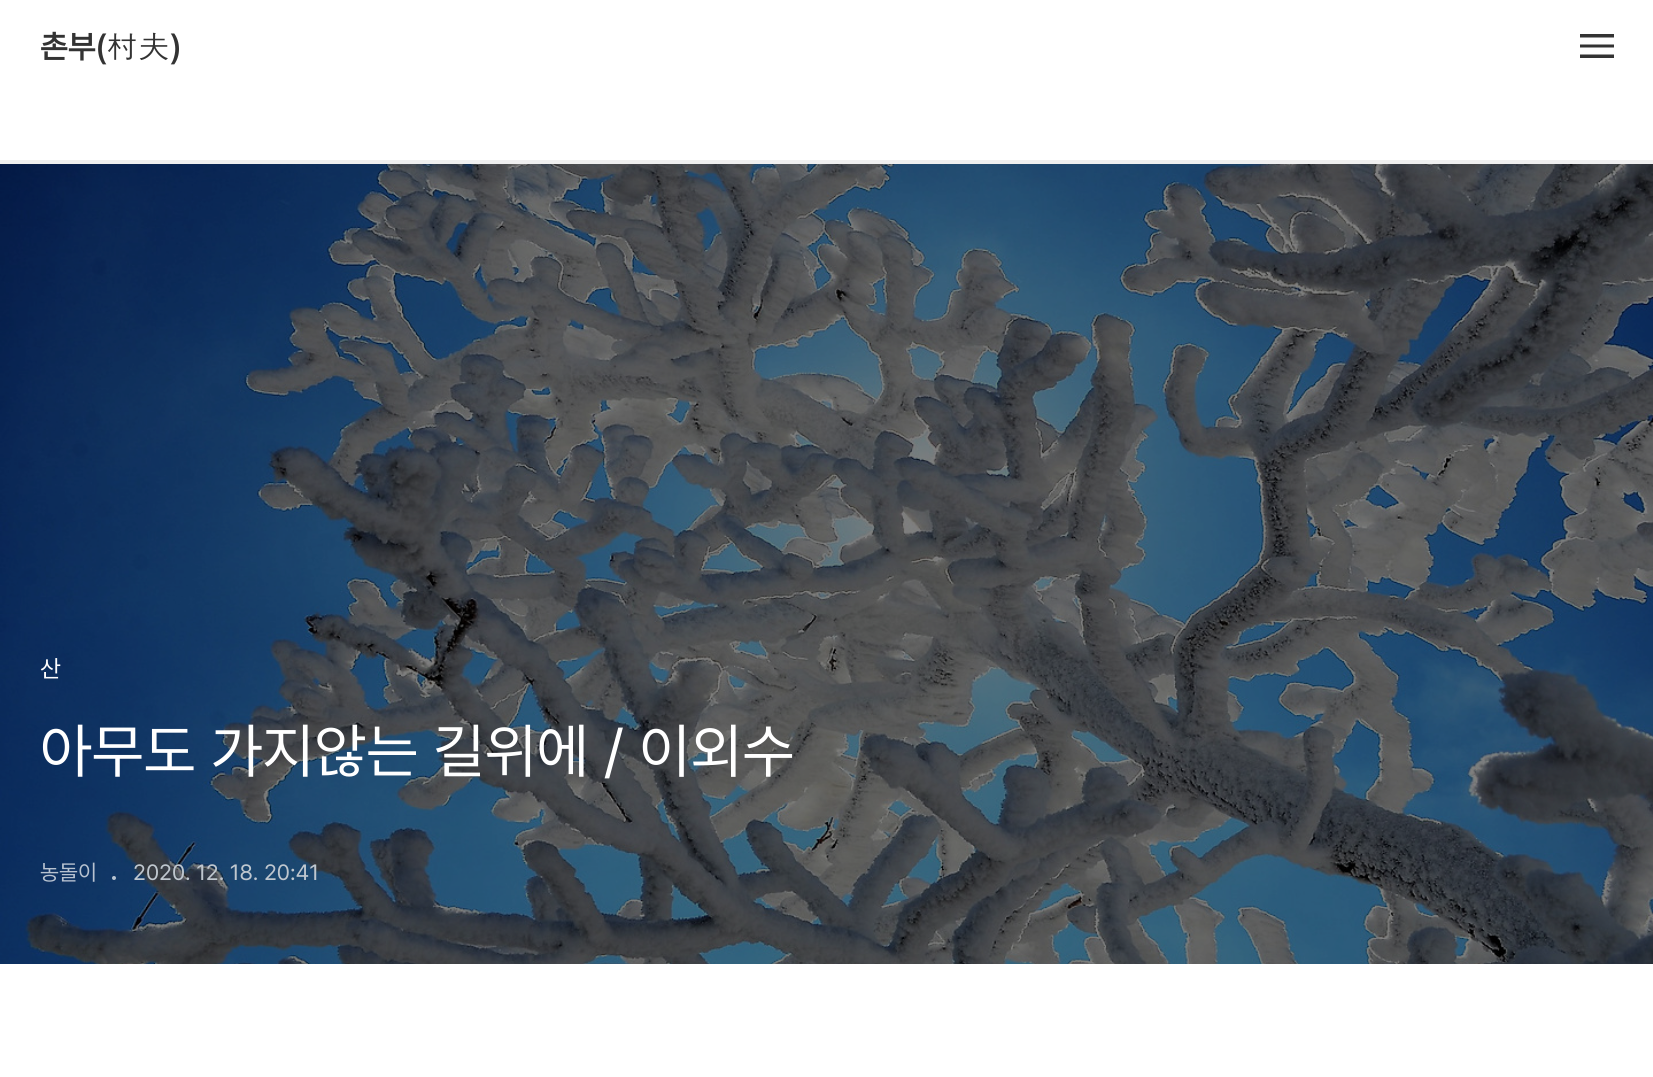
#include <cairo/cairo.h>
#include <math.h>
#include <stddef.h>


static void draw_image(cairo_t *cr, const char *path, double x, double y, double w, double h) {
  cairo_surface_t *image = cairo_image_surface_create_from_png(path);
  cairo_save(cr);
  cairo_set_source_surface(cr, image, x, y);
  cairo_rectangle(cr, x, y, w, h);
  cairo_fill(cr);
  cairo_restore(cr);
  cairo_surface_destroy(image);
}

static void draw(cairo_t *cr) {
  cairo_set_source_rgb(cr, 1, 1, 1);
  cairo_paint(cr);
  cairo_set_source_rgb(cr, 239 / 255.0, 239 / 255.0, 239 / 255.0);
  cairo_rectangle(cr, 0, 160, 1653, 4);
  cairo_fill(cr);
  cairo_set_source_rgb(cr, 51 / 255.0, 51 / 255.0, 51 / 255.0);
  cairo_set_fill_rule(cr, CAIRO_FILL_RULE_EVEN_ODD);
  cairo_new_path(cr);
  cairo_move_to(cr, 1580, 34);
  cairo_line_to(cr, 1614, 34);
  cairo_line_to(cr, 1614, 37.5);
  cairo_line_to(cr, 1580, 37.5);
  cairo_close_path(cr);
  cairo_move_to(cr, 1580, 44.5);
  cairo_line_to(cr, 1614, 44.5);
  cairo_line_to(cr, 1614, 47.5);
  cairo_line_to(cr, 1580, 47.5);
  cairo_close_path(cr);
  cairo_move_to(cr, 1580, 54.5);
  cairo_line_to(cr, 1614, 54.5);
  cairo_line_to(cr, 1614, 58);
  cairo_line_to(cr, 1580, 58);
  cairo_close_path(cr);
  cairo_fill(cr);
  draw_image(cr, "images/1.png", 0, 164, 1653, 800);
  cairo_set_source_rgb(cr, 183 / 255.0, 195 / 255.0, 209 / 255.0);
  cairo_arc(cr, 114, 878, 2, 0, 2 * M_PI);
  cairo_fill(cr);
  cairo_select_font_face(cr, "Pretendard", CAIRO_FONT_SLANT_NORMAL, CAIRO_FONT_WEIGHT_BOLD);
  cairo_set_font_size(cr, 32);
  cairo_set_source_rgb(cr, 51 / 255.0, 51 / 255.0, 51 / 255.0);
  cairo_move_to(cr, 40, 58);
  cairo_show_text(cr, "촌부(");
  cairo_select_font_face(cr, "Dotum", CAIRO_FONT_SLANT_NORMAL, CAIRO_FONT_WEIGHT_NORMAL);
  cairo_move_to(cr, 106, 58);
  cairo_show_text(cr, "村夫");
  cairo_select_font_face(cr, "Pretendard", CAIRO_FONT_SLANT_NORMAL, CAIRO_FONT_WEIGHT_BOLD);
  cairo_move_to(cr, 170, 58);
  cairo_show_text(cr, ")");
  cairo_select_font_face(cr, "Pretendard", CAIRO_FONT_SLANT_NORMAL, CAIRO_FONT_WEIGHT_NORMAL);
  cairo_set_font_size(cr, 24);
  cairo_set_source_rgb(cr, 1, 1, 1);
  cairo_move_to(cr, 40, 677);
  cairo_show_text(cr, "산");
  cairo_set_font_size(cr, 60);
  cairo_move_to(cr, 40, 772);
  cairo_show_text(cr, "아무도 가지않는 길위에 / 이외수");
  cairo_set_font_size(cr, 22);
  cairo_set_source_rgb(cr, 183 / 255.0, 194 / 255.0, 208 / 255.0);
  cairo_move_to(cr, 40, 880);
  cairo_show_text(cr, "농돌이");
  cairo_set_source_rgb(cr, 191 / 255.0, 199 / 255.0, 207 / 255.0);
  cairo_move_to(cr, 133, 880);
  cairo_show_text(cr, "2020. 12. 18. 20:41");
}

int main(void) {
  cairo_surface_t *surface = cairo_image_surface_create(CAIRO_FORMAT_RGB24, 1653, 1077);
  cairo_t *cr = cairo_create(surface);
  cairo_font_options_t *options = cairo_font_options_create();
  cairo_font_options_set_hint_metrics(options, CAIRO_HINT_METRICS_OFF);
  cairo_font_options_set_hint_style(options, CAIRO_HINT_STYLE_NONE);
  cairo_set_font_options(cr, options);
  cairo_set_miter_limit(cr, 4);
  draw(cr);
  cairo_surface_write_to_png(surface, "out.png");
  cairo_font_options_destroy(options);
  cairo_destroy(cr);
  cairo_surface_destroy(surface);
  return 0;
}
